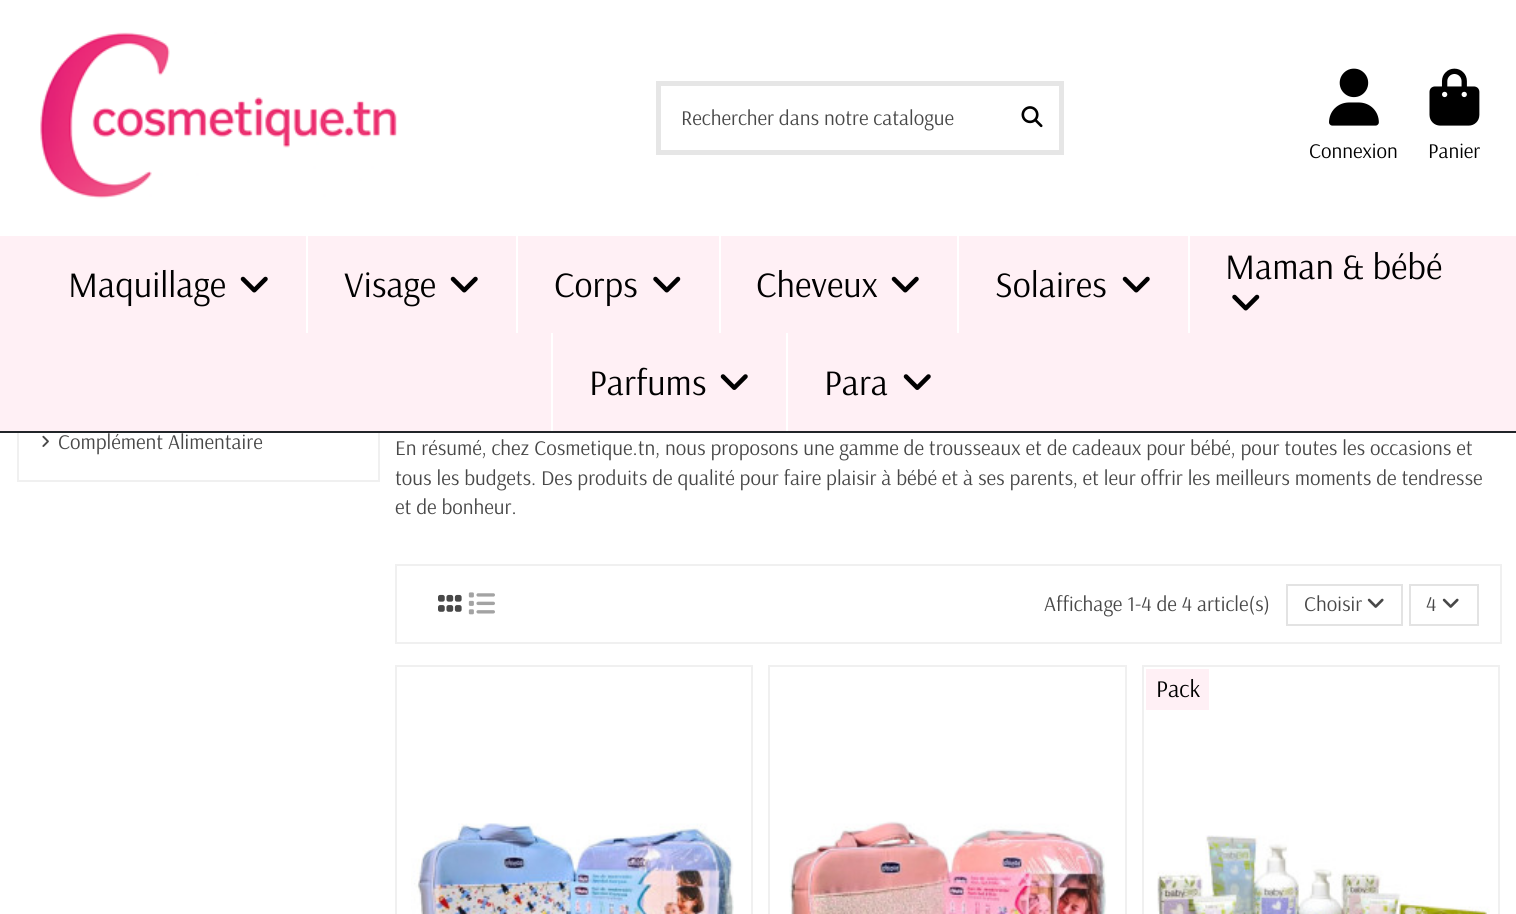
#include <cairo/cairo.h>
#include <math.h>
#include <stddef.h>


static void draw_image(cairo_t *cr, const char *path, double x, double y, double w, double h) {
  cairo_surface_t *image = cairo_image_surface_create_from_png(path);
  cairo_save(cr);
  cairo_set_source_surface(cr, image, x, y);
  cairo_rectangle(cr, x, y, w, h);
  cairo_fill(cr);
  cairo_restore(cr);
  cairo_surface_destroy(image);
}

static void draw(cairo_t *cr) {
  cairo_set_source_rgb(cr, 1, 1, 1);
  cairo_paint(cr);
  cairo_rectangle(cr, 18, 157, 361, 324);
  cairo_set_source_rgb(cr, 240 / 255.0, 240 / 255.0, 240 / 255.0);
  cairo_stroke(cr);
  cairo_set_source_rgb(cr, 1, 1, 1);
  cairo_rectangle(cr, 17, 156, 363, 80);
  cairo_fill(cr);
  cairo_set_source_rgb(cr, 33 / 255.0, 37 / 255.0, 41 / 255.0);
  cairo_rectangle(cr, 0, 431, 1516, 2);
  cairo_fill(cr);
  draw_image(cr, "images/1.png", 40, 32, 357, 167);
  cairo_rectangle(cr, 658.5, 83.5, 403, 69);
  cairo_set_source_rgb(cr, 230 / 255.0, 230 / 255.0, 230 / 255.0);
  cairo_set_line_width(cr, 5);
  cairo_stroke(cr);
  draw_image(cr, "images/2.png", 1021, 106, 22, 22);
  draw_image(cr, "images/3.png", 1329, 68, 50, 58);
  draw_image(cr, "images/4.png", 1429, 68, 51, 58);
  cairo_set_source_rgb(cr, 1, 240 / 255.0, 245 / 255.0);
  cairo_rectangle(cr, 0, 236, 1516, 195);
  cairo_fill(cr);
  cairo_set_source_rgb(cr, 1, 1, 1);
  cairo_rectangle(cr, 1188, 236, 2, 97);
  cairo_fill(cr);
  draw_image(cr, "images/5.png", 1232, 294, 28, 17);
  draw_image(cr, "images/6.png", 240, 276, 28, 17);
  cairo_rectangle(cr, 306, 236, 2, 97);
  cairo_fill(cr);
  draw_image(cr, "images/6.png", 450, 276, 28, 17);
  cairo_rectangle(cr, 516, 236, 2, 97);
  cairo_fill(cr);
  draw_image(cr, "images/5.png", 653, 276, 28, 17);
  cairo_rectangle(cr, 719, 236, 2, 97);
  cairo_fill(cr);
  draw_image(cr, "images/6.png", 891, 276, 28, 17);
  cairo_rectangle(cr, 957, 236, 2, 97);
  cairo_fill(cr);
  draw_image(cr, "images/6.png", 1122, 276, 28, 17);
  cairo_rectangle(cr, 551, 333, 2, 98);
  cairo_fill(cr);
  draw_image(cr, "images/7.png", 720, 374, 28, 16);
  cairo_rectangle(cr, 786, 333, 2, 98);
  cairo_fill(cr);
  draw_image(cr, "images/7.png", 903, 374, 28, 16);
  draw_image(cr, "images/8.png", 42, 435, 7, 12);
  cairo_rectangle(cr, 396, 565, 1105, 78);
  cairo_set_source_rgb(cr, 240 / 255.0, 240 / 255.0, 240 / 255.0);
  cairo_set_line_width(cr, 2);
  cairo_stroke(cr);
  draw_image(cr, "images/9.png", 438, 594, 24, 18);
  draw_image(cr, "images/10.png", 468, 592, 27, 23);
  cairo_rectangle(cr, 1287, 585, 115, 40);
  cairo_set_source_rgb(cr, 227 / 255.0, 227 / 255.0, 227 / 255.0);
  cairo_stroke(cr);
  draw_image(cr, "images/11.png", 1367, 598, 17, 10);
  cairo_rectangle(cr, 1410, 585, 68, 40);
  cairo_stroke(cr);
  draw_image(cr, "images/11.png", 1442, 598, 17, 10);
  cairo_rectangle(cr, 396, 666, 356, 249);
  cairo_set_source_rgb(cr, 240 / 255.0, 240 / 255.0, 240 / 255.0);
  cairo_stroke(cr);
  draw_image(cr, "images/12.png", 411, 823, 323, 91);
  cairo_rectangle(cr, 769, 666, 357, 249);
  cairo_stroke(cr);
  draw_image(cr, "images/13.png", 789, 821, 318, 93);
  cairo_rectangle(cr, 1143, 666, 356, 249);
  cairo_stroke(cr);
  cairo_set_source_rgb(cr, 1, 240 / 255.0, 245 / 255.0);
  cairo_rectangle(cr, 1146, 669, 63, 41);
  cairo_fill(cr);
  draw_image(cr, "images/14.png", 1157, 835, 333, 79);
  cairo_select_font_face(cr, "Arsenal", CAIRO_FONT_SLANT_NORMAL, CAIRO_FONT_WEIGHT_NORMAL);
  cairo_set_font_size(cr, 21);
  cairo_set_source_rgb(cr, 72 / 255.0, 72 / 255.0, 72 / 255.0);
  cairo_move_to(cr, 681, 125);
  cairo_show_text(cr, "Rechercher dans notre catalogue");
  cairo_set_source_rgb(cr, 0, 0, 0);
  cairo_move_to(cr, 1309, 158);
  cairo_show_text(cr, "Connexion");
  cairo_move_to(cr, 1428, 158);
  cairo_show_text(cr, "Panier");
  cairo_set_font_size(cr, 36);
  cairo_move_to(cr, 1225, 279);
  cairo_show_text(cr, "Maman & bébé");
  cairo_move_to(cr, 68, 297);
  cairo_show_text(cr, "Maquillage");
  cairo_move_to(cr, 344, 297);
  cairo_show_text(cr, "Visage");
  cairo_move_to(cr, 554, 297);
  cairo_show_text(cr, "Corps");
  cairo_move_to(cr, 756, 297);
  cairo_show_text(cr, "Cheveux");
  cairo_move_to(cr, 995, 297);
  cairo_show_text(cr, "Solaires");
  cairo_move_to(cr, 589, 395);
  cairo_show_text(cr, "Parfums");
  cairo_move_to(cr, 824, 395);
  cairo_show_text(cr, "Para");
  cairo_set_font_size(cr, 21);
  cairo_set_source_rgb(cr, 72 / 255.0, 72 / 255.0, 72 / 255.0);
  cairo_move_to(cr, 58, 449);
  cairo_show_text(cr, "Complément Alimentaire");
  cairo_move_to(cr, 395, 455);
  cairo_show_text(cr, "En résumé, chez Cosmetique.tn, nous proposons une gamme de trousseaux et de cadeaux pour bébé, pour toutes les occasions et");
  cairo_move_to(cr, 395, 485);
  cairo_show_text(cr, "tous les budgets. Des produits de qualité pour faire plaisir à bébé et à ses parents, et leur offrir les meilleurs moments de tendresse");
  cairo_move_to(cr, 395, 514);
  cairo_show_text(cr, "et de bonheur.");
  cairo_move_to(cr, 1044, 611);
  cairo_show_text(cr, "Affichage 1-4 de 4 article(s)");
  cairo_move_to(cr, 1304, 611);
  cairo_show_text(cr, "Choisir");
  cairo_move_to(cr, 1426, 611);
  cairo_show_text(cr, "4");
  cairo_set_font_size(cr, 24);
  cairo_set_source_rgb(cr, 0, 0, 0);
  cairo_move_to(cr, 1156, 697);
  cairo_show_text(cr, "Pack");
}

int main(void) {
  cairo_surface_t *surface = cairo_image_surface_create(CAIRO_FORMAT_RGB24, 1516, 914);
  cairo_t *cr = cairo_create(surface);
  cairo_font_options_t *options = cairo_font_options_create();
  cairo_font_options_set_hint_metrics(options, CAIRO_HINT_METRICS_OFF);
  cairo_font_options_set_hint_style(options, CAIRO_HINT_STYLE_NONE);
  cairo_set_font_options(cr, options);
  cairo_set_miter_limit(cr, 4);
  draw(cr);
  cairo_surface_write_to_png(surface, "out.png");
  cairo_font_options_destroy(options);
  cairo_destroy(cr);
  cairo_surface_destroy(surface);
  return 0;
}
